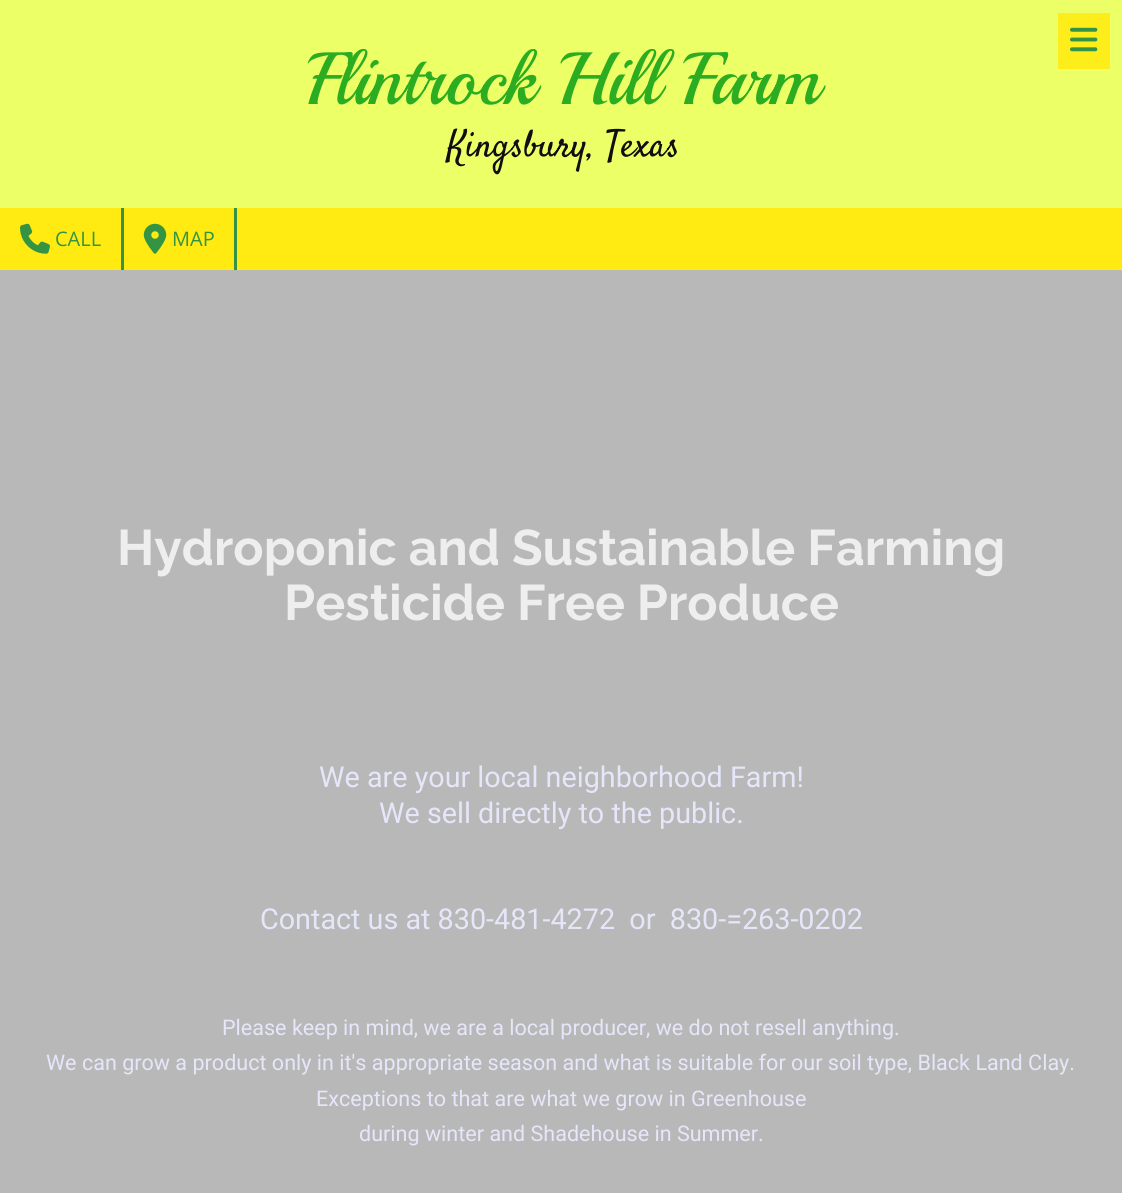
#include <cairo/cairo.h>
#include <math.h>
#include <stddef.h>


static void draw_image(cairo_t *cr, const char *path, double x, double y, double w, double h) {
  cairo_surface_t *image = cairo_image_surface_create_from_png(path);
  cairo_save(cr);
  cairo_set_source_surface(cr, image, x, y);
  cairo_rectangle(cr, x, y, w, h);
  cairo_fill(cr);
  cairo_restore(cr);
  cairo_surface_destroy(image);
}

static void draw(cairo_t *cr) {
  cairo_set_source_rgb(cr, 237 / 255.0, 1, 102 / 255.0);
  cairo_paint(cr);
  cairo_set_source_rgb(cr, 253 / 255.0, 237 / 255.0, 26 / 255.0);
  cairo_rectangle(cr, 1058, 13, 52, 56);
  cairo_fill(cr);
  draw_image(cr, "images/1.png", 1070, 27, 28, 25);
  cairo_set_source_rgb(cr, 1, 235 / 255.0, 18 / 255.0);
  cairo_rectangle(cr, 0, 208, 1122, 62);
  cairo_fill(cr);
  cairo_set_source_rgb(cr, 53 / 255.0, 148 / 255.0, 68 / 255.0);
  cairo_rectangle(cr, 121, 208, 3, 62);
  cairo_fill(cr);
  draw_image(cr, "images/2.png", 20, 223, 30, 31);
  cairo_rectangle(cr, 234, 208, 3, 62);
  cairo_fill(cr);
  draw_image(cr, "images/3.png", 143, 223, 24, 31);
  cairo_set_source_rgb(cr, 184 / 255.0, 184 / 255.0, 184 / 255.0);
  cairo_rectangle(cr, 0, 270, 1122, 923);
  cairo_fill(cr);
  cairo_select_font_face(cr, "Playball", CAIRO_FONT_SLANT_NORMAL, CAIRO_FONT_WEIGHT_NORMAL);
  cairo_set_font_size(cr, 74);
  cairo_set_source_rgb(cr, 44 / 255.0, 173 / 255.0, 33 / 255.0);
  cairo_move_to(cr, 307, 104);
  cairo_show_text(cr, "Flintrock Hill Farm");
  cairo_select_font_face(cr, "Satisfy", CAIRO_FONT_SLANT_NORMAL, CAIRO_FONT_WEIGHT_NORMAL);
  cairo_set_font_size(cr, 37.5);
  cairo_set_source_rgb(cr, 15 / 255.0, 15 / 255.0, 15 / 255.0);
  cairo_move_to(cr, 447, 156);
  cairo_show_text(cr, "Kingsbury, Texas");
  cairo_select_font_face(cr, "Open Sans", CAIRO_FONT_SLANT_NORMAL, CAIRO_FONT_WEIGHT_NORMAL);
  cairo_set_font_size(cr, 20);
  cairo_set_source_rgb(cr, 53 / 255.0, 148 / 255.0, 68 / 255.0);
  cairo_move_to(cr, 55, 246);
  cairo_show_text(cr, "CALL");
  cairo_move_to(cr, 172, 246);
  cairo_show_text(cr, "MAP");
  cairo_select_font_face(cr, "Raleway", CAIRO_FONT_SLANT_NORMAL, CAIRO_FONT_WEIGHT_BOLD);
  cairo_set_font_size(cr, 50);
  cairo_set_source_rgb(cr, 238 / 255.0, 238 / 255.0, 238 / 255.0);
  cairo_move_to(cr, 117, 565);
  cairo_show_text(cr, "Hydroponic and Sustainable Farming");
  cairo_move_to(cr, 284, 620);
  cairo_show_text(cr, "Pesticide Free Produce");
  cairo_select_font_face(cr, "Roboto", CAIRO_FONT_SLANT_NORMAL, CAIRO_FONT_WEIGHT_NORMAL);
  cairo_set_font_size(cr, 28.75);
  cairo_set_source_rgb(cr, 230 / 255.0, 230 / 255.0, 250 / 255.0);
  cairo_move_to(cr, 319, 787);
  cairo_show_text(cr, "We are your local neighborhood Farm!");
  cairo_move_to(cr, 379, 823);
  cairo_show_text(cr, "We sell directly to the public.");
  cairo_move_to(cr, 260, 929);
  cairo_show_text(cr, "Contact us at 830-481-4272  or  830-=263-0202");
  cairo_set_font_size(cr, 21.55);
  cairo_move_to(cr, 222, 1035);
  cairo_show_text(cr, "Please keep in mind, we are a local producer, we do not resell anything.");
  cairo_move_to(cr, 46, 1070);
  cairo_show_text(cr, "We can grow a product only in it's appropriate season and what is suitable for our soil type, Black Land Clay.");
  cairo_move_to(cr, 316, 1106);
  cairo_show_text(cr, "Exceptions to that are what we grow in Greenhouse");
  cairo_move_to(cr, 359, 1141);
  cairo_show_text(cr, "during winter and Shadehouse in Summer.");
}

int main(void) {
  cairo_surface_t *surface = cairo_image_surface_create(CAIRO_FORMAT_RGB24, 1122, 1193);
  cairo_t *cr = cairo_create(surface);
  cairo_font_options_t *options = cairo_font_options_create();
  cairo_font_options_set_hint_metrics(options, CAIRO_HINT_METRICS_OFF);
  cairo_font_options_set_hint_style(options, CAIRO_HINT_STYLE_NONE);
  cairo_set_font_options(cr, options);
  cairo_set_miter_limit(cr, 4);
  draw(cr);
  cairo_surface_write_to_png(surface, "out.png");
  cairo_font_options_destroy(options);
  cairo_destroy(cr);
  cairo_surface_destroy(surface);
  return 0;
}
